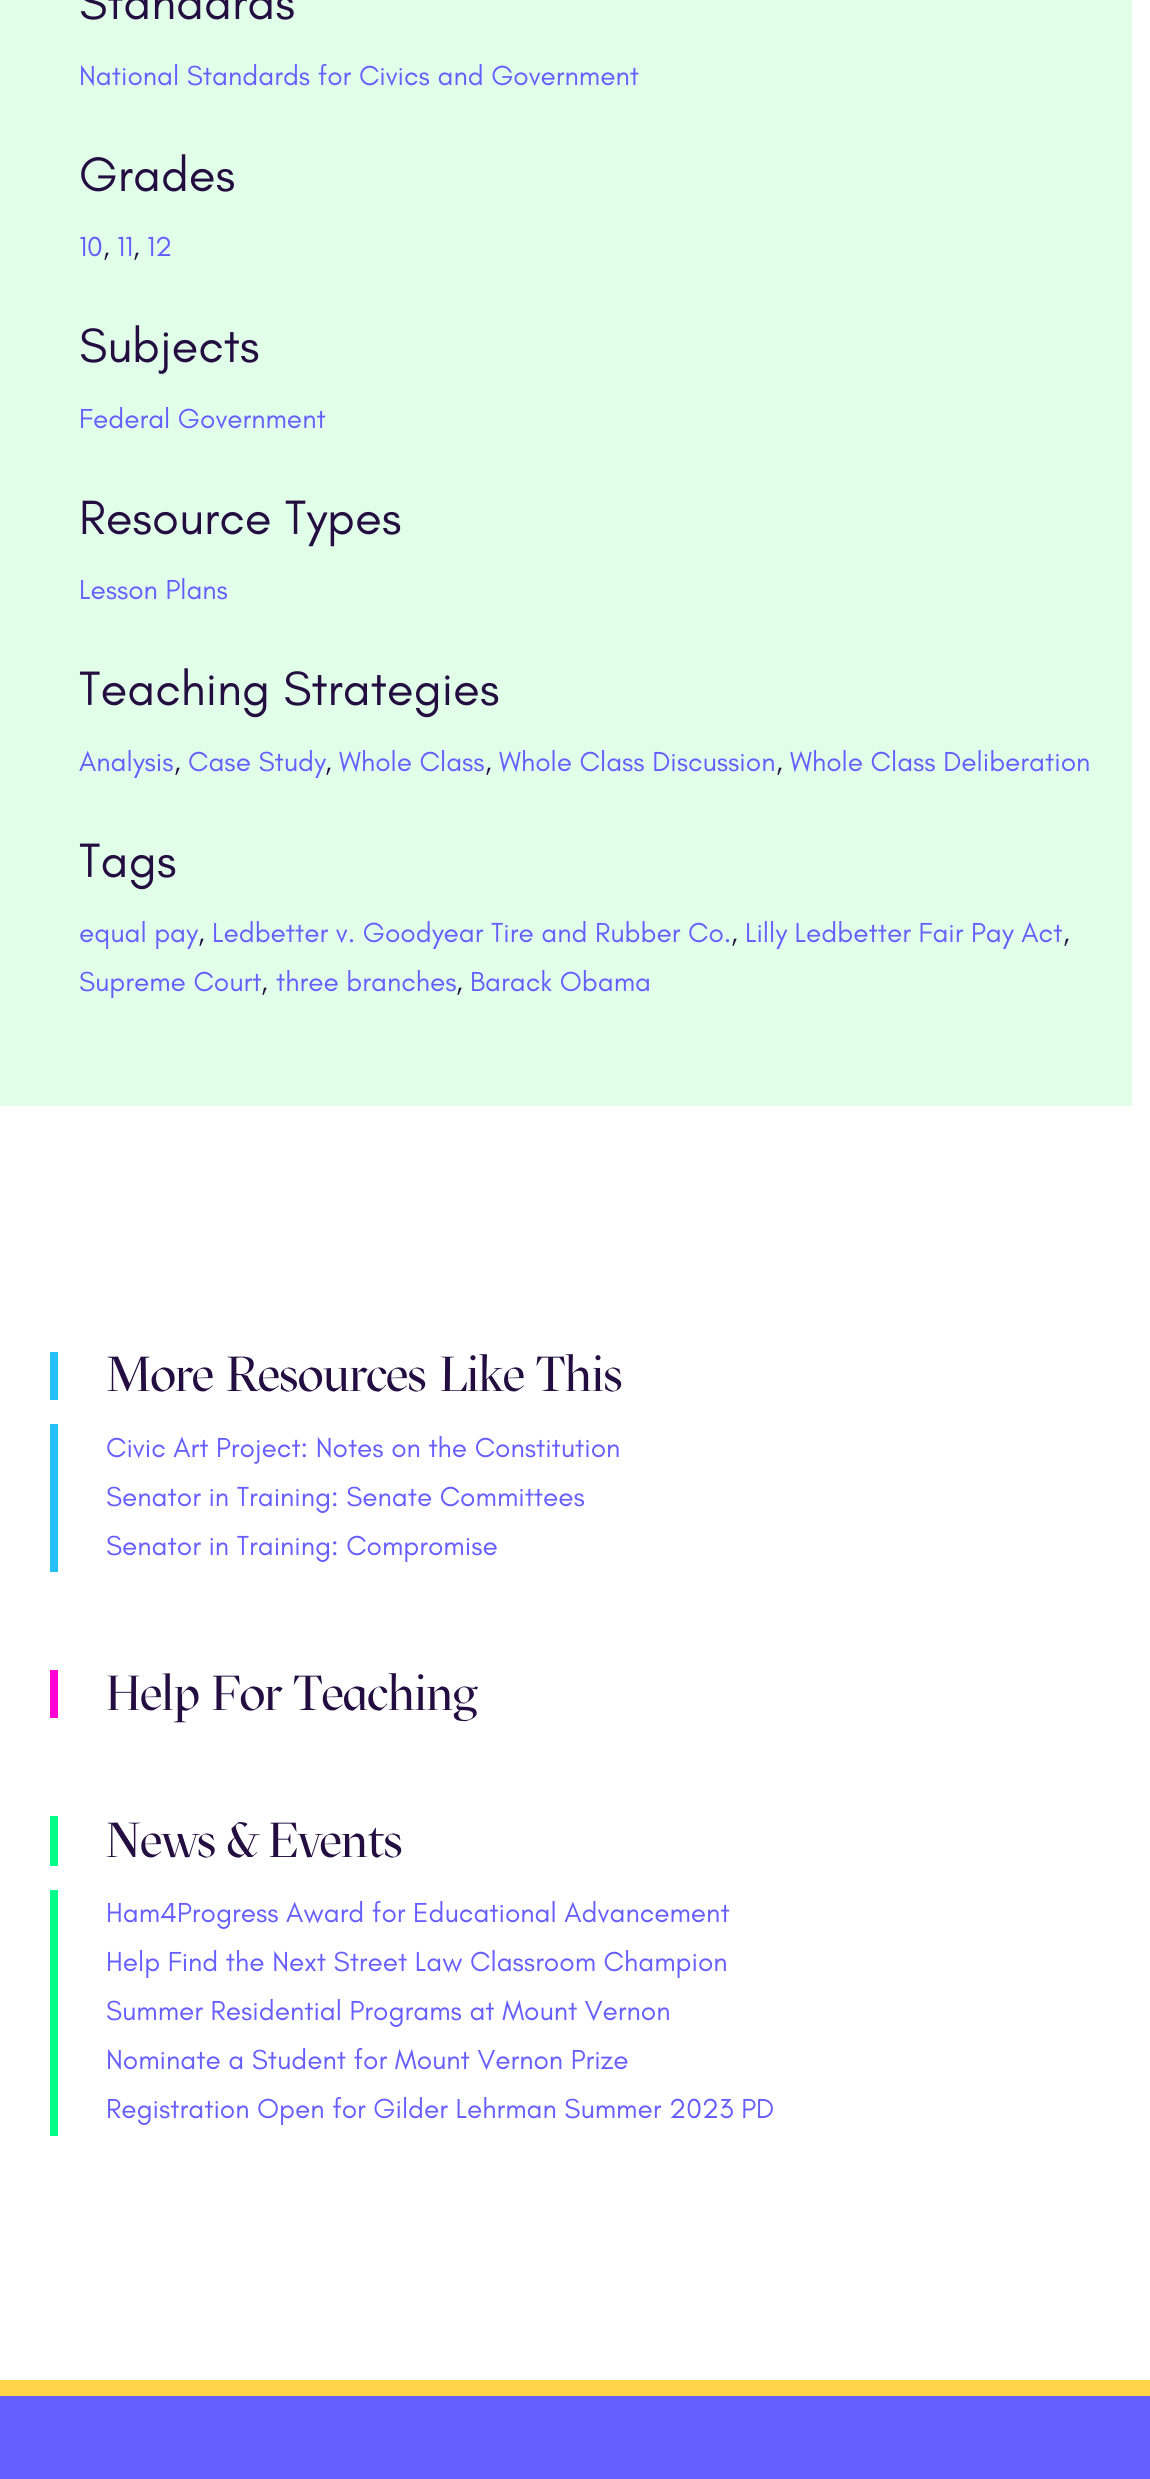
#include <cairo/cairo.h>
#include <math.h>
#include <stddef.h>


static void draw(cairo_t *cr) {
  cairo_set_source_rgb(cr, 1, 1, 1);
  cairo_paint(cr);
  cairo_set_source_rgb(cr, 225 / 255.0, 254 / 255.0, 232 / 255.0);
  cairo_rectangle(cr, 0, 0, 1132, 1106);
  cairo_fill(cr);
  cairo_set_source_rgb(cr, 37 / 255.0, 191 / 255.0, 249 / 255.0);
  cairo_rectangle(cr, 50, 1352, 8, 48);
  cairo_fill(cr);
  cairo_rectangle(cr, 50, 1424, 8, 148);
  cairo_fill(cr);
  cairo_set_source_rgb(cr, 1, 0, 212 / 255.0);
  cairo_rectangle(cr, 50, 1670, 8, 48);
  cairo_fill(cr);
  cairo_set_source_rgb(cr, 0, 1, 137 / 255.0);
  cairo_rectangle(cr, 50, 1816, 8, 50);
  cairo_fill(cr);
  cairo_rectangle(cr, 50, 1890, 8, 246);
  cairo_fill(cr);
  cairo_set_source_rgb(cr, 103 / 255.0, 94 / 255.0, 1);
  cairo_rectangle(cr, 0, 2396, 1150, 83);
  cairo_fill(cr);
  cairo_set_source_rgb(cr, 1, 212 / 255.0, 73 / 255.0);
  cairo_rectangle(cr, 0, 2380, 1150, 16);
  cairo_fill(cr);
  cairo_select_font_face(cr, "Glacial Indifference", CAIRO_FONT_SLANT_NORMAL, CAIRO_FONT_WEIGHT_NORMAL);
  cairo_set_font_size(cr, 49);
  cairo_set_source_rgb(cr, 35 / 255.0, 13 / 255.0, 65 / 255.0);
  cairo_move_to(cr, 79, 19);
  cairo_show_text(cr, "Standards");
  cairo_set_font_size(cr, 28);
  cairo_set_source_rgb(cr, 103 / 255.0, 94 / 255.0, 1);
  cairo_move_to(cr, 79, 85);
  cairo_show_text(cr, "National Standards for Civics and Government");
  cairo_set_font_size(cr, 49);
  cairo_set_source_rgb(cr, 35 / 255.0, 13 / 255.0, 65 / 255.0);
  cairo_move_to(cr, 79, 191);
  cairo_show_text(cr, "Grades");
  cairo_set_font_size(cr, 28);
  cairo_set_source_rgb(cr, 103 / 255.0, 94 / 255.0, 1);
  cairo_move_to(cr, 79, 256);
  cairo_show_text(cr, "10");
  cairo_set_source_rgb(cr, 35 / 255.0, 13 / 255.0, 65 / 255.0);
  cairo_move_to(cr, 103, 256);
  cairo_show_text(cr, ",");
  cairo_set_source_rgb(cr, 103 / 255.0, 94 / 255.0, 1);
  cairo_move_to(cr, 117, 256);
  cairo_show_text(cr, "11");
  cairo_set_source_rgb(cr, 35 / 255.0, 13 / 255.0, 65 / 255.0);
  cairo_move_to(cr, 133, 256);
  cairo_show_text(cr, ",");
  cairo_set_source_rgb(cr, 103 / 255.0, 94 / 255.0, 1);
  cairo_move_to(cr, 147, 256);
  cairo_show_text(cr, "12");
  cairo_set_font_size(cr, 49);
  cairo_set_source_rgb(cr, 35 / 255.0, 13 / 255.0, 65 / 255.0);
  cairo_move_to(cr, 79, 362);
  cairo_show_text(cr, "Subjects");
  cairo_set_font_size(cr, 28);
  cairo_set_source_rgb(cr, 103 / 255.0, 94 / 255.0, 1);
  cairo_move_to(cr, 79, 428);
  cairo_show_text(cr, "Federal Government");
  cairo_set_font_size(cr, 49);
  cairo_set_source_rgb(cr, 35 / 255.0, 13 / 255.0, 65 / 255.0);
  cairo_move_to(cr, 79, 534);
  cairo_show_text(cr, "Resource Types");
  cairo_set_font_size(cr, 28);
  cairo_set_source_rgb(cr, 103 / 255.0, 94 / 255.0, 1);
  cairo_move_to(cr, 79, 599);
  cairo_show_text(cr, "Lesson Plans");
  cairo_set_font_size(cr, 49);
  cairo_set_source_rgb(cr, 35 / 255.0, 13 / 255.0, 65 / 255.0);
  cairo_move_to(cr, 79, 705);
  cairo_show_text(cr, "Teaching Strategies");
  cairo_set_font_size(cr, 28);
  cairo_set_source_rgb(cr, 103 / 255.0, 94 / 255.0, 1);
  cairo_move_to(cr, 79, 771);
  cairo_show_text(cr, "Analysis");
  cairo_set_source_rgb(cr, 35 / 255.0, 13 / 255.0, 65 / 255.0);
  cairo_move_to(cr, 174, 771);
  cairo_show_text(cr, ",");
  cairo_set_source_rgb(cr, 103 / 255.0, 94 / 255.0, 1);
  cairo_move_to(cr, 188, 771);
  cairo_show_text(cr, "Case Study");
  cairo_set_source_rgb(cr, 35 / 255.0, 13 / 255.0, 65 / 255.0);
  cairo_move_to(cr, 325, 771);
  cairo_show_text(cr, ",");
  cairo_set_source_rgb(cr, 103 / 255.0, 94 / 255.0, 1);
  cairo_move_to(cr, 339, 771);
  cairo_show_text(cr, "Whole Class");
  cairo_set_source_rgb(cr, 35 / 255.0, 13 / 255.0, 65 / 255.0);
  cairo_move_to(cr, 485, 771);
  cairo_show_text(cr, ",");
  cairo_set_source_rgb(cr, 103 / 255.0, 94 / 255.0, 1);
  cairo_move_to(cr, 499, 771);
  cairo_show_text(cr, "Whole Class Discussion");
  cairo_set_source_rgb(cr, 35 / 255.0, 13 / 255.0, 65 / 255.0);
  cairo_move_to(cr, 776, 771);
  cairo_show_text(cr, ",");
  cairo_set_source_rgb(cr, 103 / 255.0, 94 / 255.0, 1);
  cairo_move_to(cr, 790, 771);
  cairo_show_text(cr, "Whole Class Deliberation");
  cairo_set_font_size(cr, 49);
  cairo_set_source_rgb(cr, 35 / 255.0, 13 / 255.0, 65 / 255.0);
  cairo_move_to(cr, 79, 877);
  cairo_show_text(cr, "Tags");
  cairo_set_font_size(cr, 28);
  cairo_set_source_rgb(cr, 103 / 255.0, 94 / 255.0, 1);
  cairo_move_to(cr, 79, 942);
  cairo_show_text(cr, "equal pay");
  cairo_set_source_rgb(cr, 35 / 255.0, 13 / 255.0, 65 / 255.0);
  cairo_move_to(cr, 198, 942);
  cairo_show_text(cr, ",");
  cairo_set_source_rgb(cr, 103 / 255.0, 94 / 255.0, 1);
  cairo_move_to(cr, 212, 942);
  cairo_show_text(cr, "Ledbetter v. Goodyear Tire and Rubber Co.");
  cairo_set_source_rgb(cr, 35 / 255.0, 13 / 255.0, 65 / 255.0);
  cairo_move_to(cr, 731, 942);
  cairo_show_text(cr, ",");
  cairo_set_source_rgb(cr, 103 / 255.0, 94 / 255.0, 1);
  cairo_move_to(cr, 745, 942);
  cairo_show_text(cr, "Lilly Ledbetter Fair Pay Act");
  cairo_set_source_rgb(cr, 35 / 255.0, 13 / 255.0, 65 / 255.0);
  cairo_move_to(cr, 1063, 942);
  cairo_show_text(cr, ",");
  cairo_set_source_rgb(cr, 103 / 255.0, 94 / 255.0, 1);
  cairo_move_to(cr, 79, 991);
  cairo_show_text(cr, "Supreme Court");
  cairo_set_source_rgb(cr, 35 / 255.0, 13 / 255.0, 65 / 255.0);
  cairo_move_to(cr, 261, 991);
  cairo_show_text(cr, ",");
  cairo_set_source_rgb(cr, 103 / 255.0, 94 / 255.0, 1);
  cairo_move_to(cr, 276, 991);
  cairo_show_text(cr, "three branches");
  cairo_set_source_rgb(cr, 35 / 255.0, 13 / 255.0, 65 / 255.0);
  cairo_move_to(cr, 456, 991);
  cairo_show_text(cr, ",");
  cairo_set_source_rgb(cr, 103 / 255.0, 94 / 255.0, 1);
  cairo_move_to(cr, 470, 991);
  cairo_show_text(cr, "Barack Obama");
  cairo_select_font_face(cr, "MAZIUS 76", CAIRO_FONT_SLANT_NORMAL, CAIRO_FONT_WEIGHT_NORMAL);
  cairo_set_font_size(cr, 49);
  cairo_set_source_rgb(cr, 35 / 255.0, 13 / 255.0, 65 / 255.0);
  cairo_move_to(cr, 106, 1391);
  cairo_show_text(cr, "More Resources Like This");
  cairo_select_font_face(cr, "Glacial Indifference", CAIRO_FONT_SLANT_NORMAL, CAIRO_FONT_WEIGHT_NORMAL);
  cairo_set_font_size(cr, 28);
  cairo_set_source_rgb(cr, 103 / 255.0, 94 / 255.0, 1);
  cairo_move_to(cr, 106, 1457);
  cairo_show_text(cr, "Civic Art Project: Notes on the Constitution");
  cairo_move_to(cr, 106, 1506);
  cairo_show_text(cr, "Senator in Training: Senate Committees");
  cairo_move_to(cr, 106, 1555);
  cairo_show_text(cr, "Senator in Training: Compromise");
  cairo_select_font_face(cr, "MAZIUS 76", CAIRO_FONT_SLANT_NORMAL, CAIRO_FONT_WEIGHT_NORMAL);
  cairo_set_font_size(cr, 49);
  cairo_set_source_rgb(cr, 35 / 255.0, 13 / 255.0, 65 / 255.0);
  cairo_move_to(cr, 106, 1710);
  cairo_show_text(cr, "Help For Teaching");
  cairo_move_to(cr, 106, 1857);
  cairo_show_text(cr, "News & Events");
  cairo_select_font_face(cr, "Glacial Indifference", CAIRO_FONT_SLANT_NORMAL, CAIRO_FONT_WEIGHT_NORMAL);
  cairo_set_font_size(cr, 28);
  cairo_set_source_rgb(cr, 103 / 255.0, 94 / 255.0, 1);
  cairo_move_to(cr, 106, 1922);
  cairo_show_text(cr, "Ham4Progress Award for Educational Advancement");
  cairo_move_to(cr, 106, 1971);
  cairo_show_text(cr, "Help Find the Next Street Law Classroom Champion");
  cairo_move_to(cr, 106, 2020);
  cairo_show_text(cr, "Summer Residential Programs at Mount Vernon");
  cairo_move_to(cr, 106, 2069);
  cairo_show_text(cr, "Nominate a Student for Mount Vernon Prize");
  cairo_move_to(cr, 106, 2118);
  cairo_show_text(cr, "Registration Open for Gilder Lehrman Summer 2023 PD");
}

int main(void) {
  cairo_surface_t *surface = cairo_image_surface_create(CAIRO_FORMAT_RGB24, 1150, 2479);
  cairo_t *cr = cairo_create(surface);
  cairo_font_options_t *options = cairo_font_options_create();
  cairo_font_options_set_hint_metrics(options, CAIRO_HINT_METRICS_OFF);
  cairo_font_options_set_hint_style(options, CAIRO_HINT_STYLE_NONE);
  cairo_set_font_options(cr, options);
  cairo_set_miter_limit(cr, 4);
  draw(cr);
  cairo_surface_write_to_png(surface, "out.png");
  cairo_font_options_destroy(options);
  cairo_destroy(cr);
  cairo_surface_destroy(surface);
  return 0;
}
